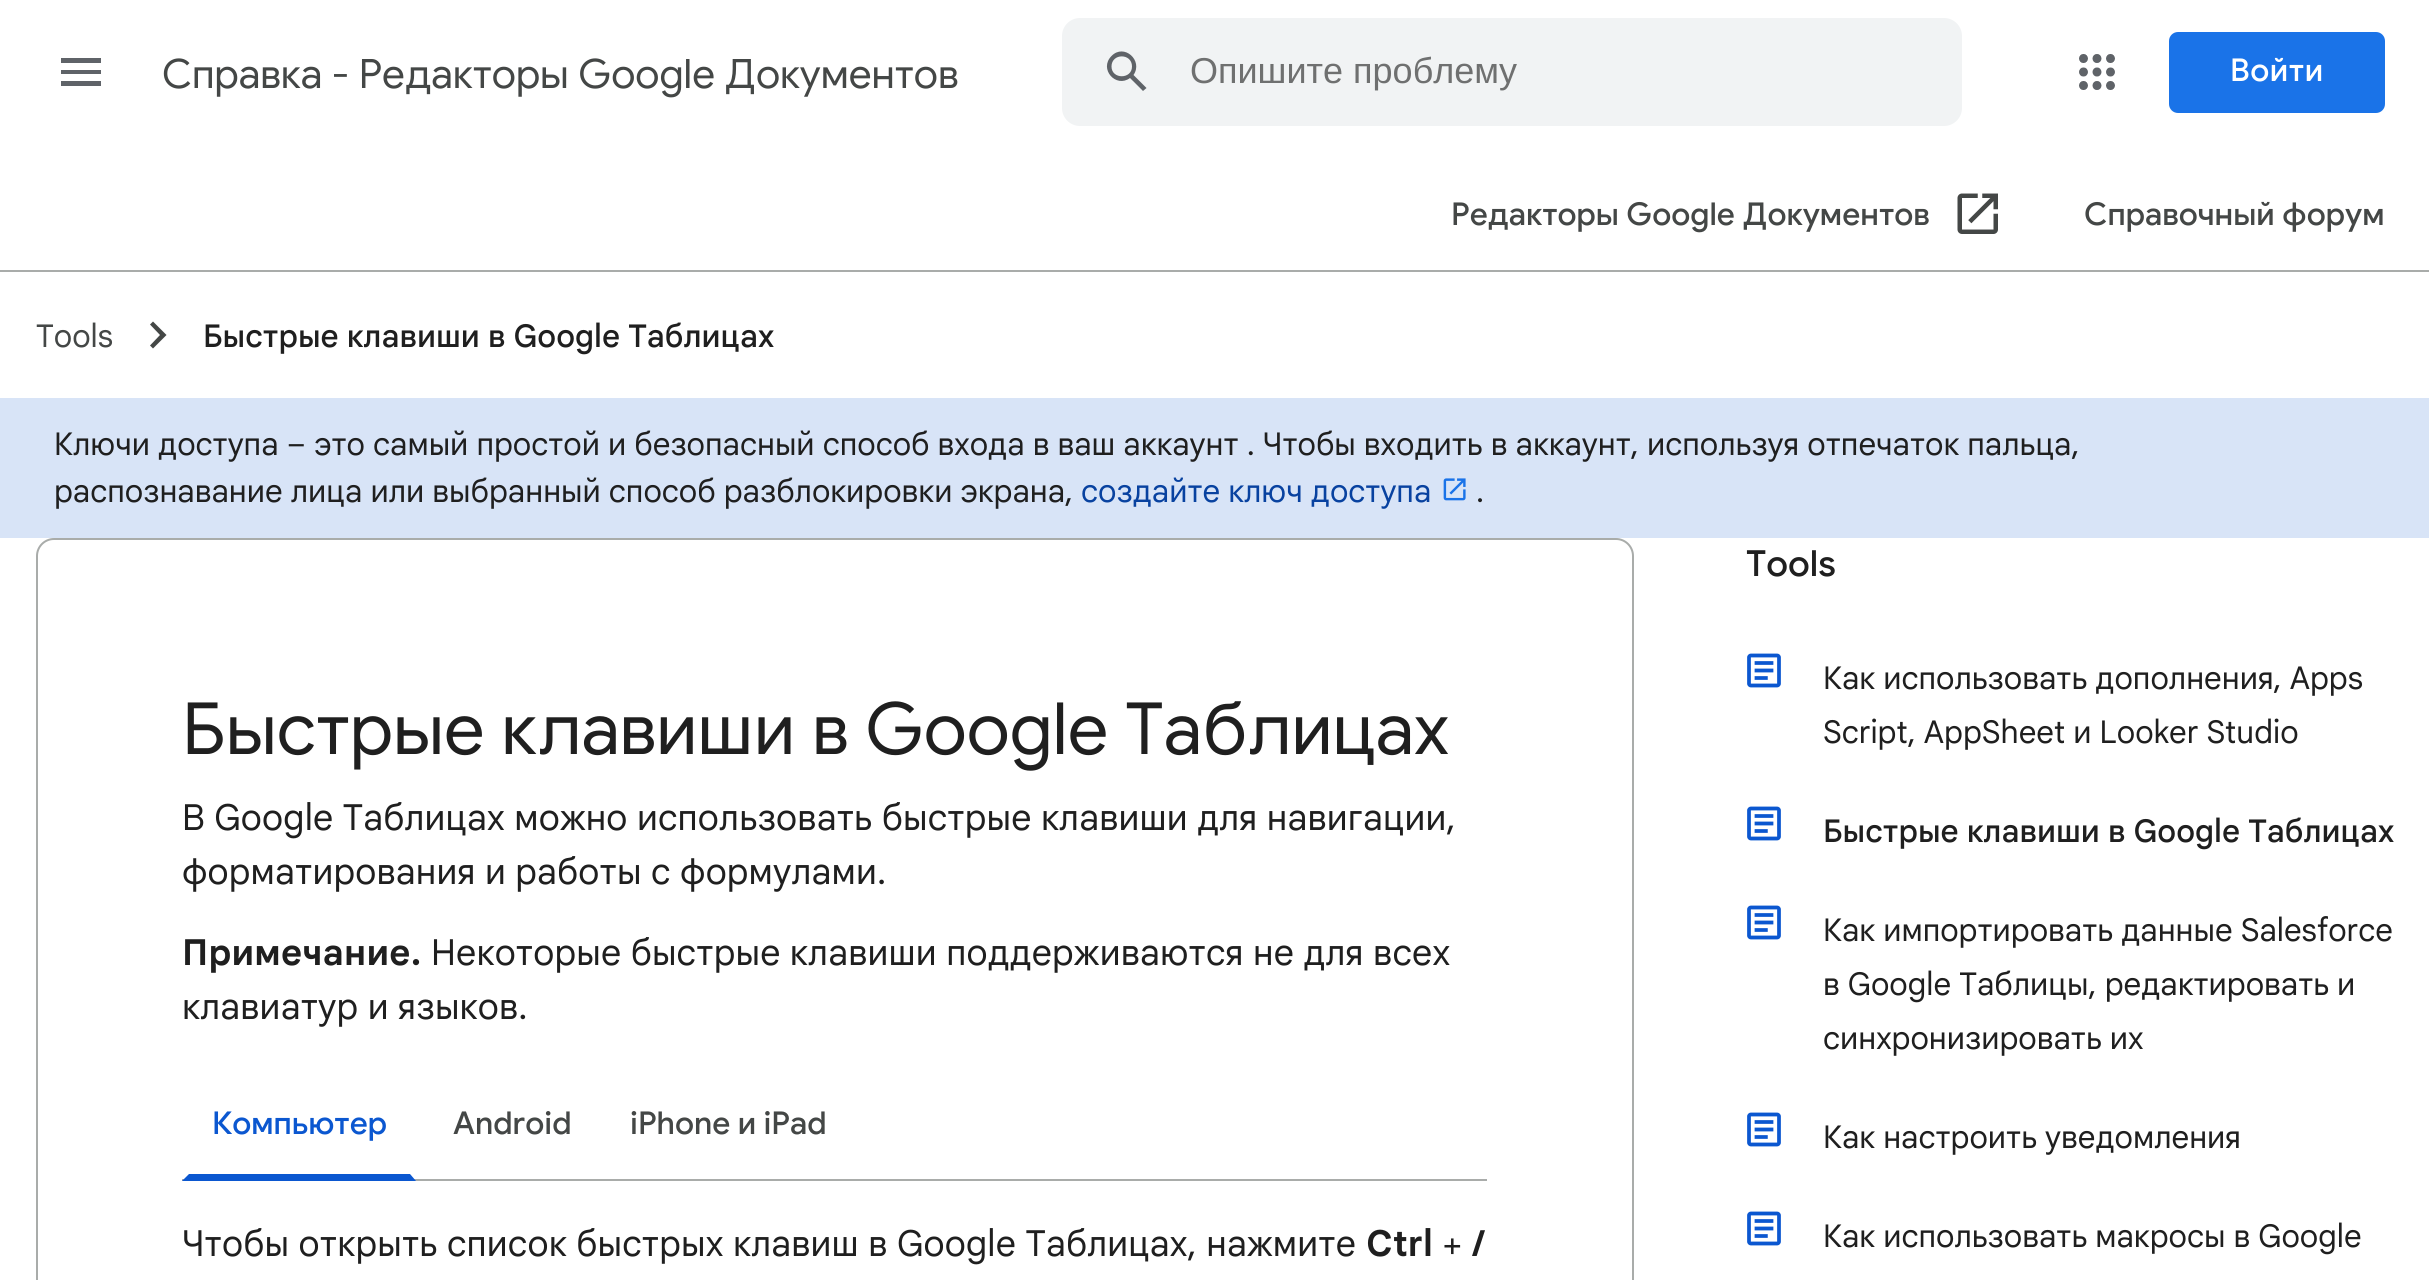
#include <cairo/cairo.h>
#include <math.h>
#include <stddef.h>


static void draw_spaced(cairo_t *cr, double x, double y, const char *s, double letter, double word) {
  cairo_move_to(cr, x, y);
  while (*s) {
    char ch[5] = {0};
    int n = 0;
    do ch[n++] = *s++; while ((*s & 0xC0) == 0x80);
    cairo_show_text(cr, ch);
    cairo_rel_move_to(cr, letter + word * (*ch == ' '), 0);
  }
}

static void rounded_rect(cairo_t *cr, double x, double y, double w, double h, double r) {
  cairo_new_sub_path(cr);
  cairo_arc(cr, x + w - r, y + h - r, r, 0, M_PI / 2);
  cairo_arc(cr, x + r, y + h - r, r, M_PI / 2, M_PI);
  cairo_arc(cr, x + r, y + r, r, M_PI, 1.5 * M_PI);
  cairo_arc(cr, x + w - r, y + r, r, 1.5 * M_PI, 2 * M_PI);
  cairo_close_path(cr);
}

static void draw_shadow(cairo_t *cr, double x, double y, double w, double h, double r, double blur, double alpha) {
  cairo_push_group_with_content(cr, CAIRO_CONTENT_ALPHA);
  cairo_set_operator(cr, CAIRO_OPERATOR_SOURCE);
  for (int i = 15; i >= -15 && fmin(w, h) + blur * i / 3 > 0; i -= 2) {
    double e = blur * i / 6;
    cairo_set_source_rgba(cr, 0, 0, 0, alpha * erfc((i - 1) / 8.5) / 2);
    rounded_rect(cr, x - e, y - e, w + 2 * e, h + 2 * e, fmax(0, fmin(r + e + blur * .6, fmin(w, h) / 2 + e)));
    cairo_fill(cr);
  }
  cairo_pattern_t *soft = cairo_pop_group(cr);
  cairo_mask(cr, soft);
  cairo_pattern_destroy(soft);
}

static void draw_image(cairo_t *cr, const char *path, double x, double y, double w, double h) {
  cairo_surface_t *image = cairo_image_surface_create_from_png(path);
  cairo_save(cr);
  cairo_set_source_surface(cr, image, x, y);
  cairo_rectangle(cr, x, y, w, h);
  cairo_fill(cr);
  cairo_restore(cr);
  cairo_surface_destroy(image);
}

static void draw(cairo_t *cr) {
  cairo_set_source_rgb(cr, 1, 1, 1);
  cairo_paint(cr);
  cairo_set_source_rgb(cr, 216 / 255.0, 228 / 255.0, 247 / 255.0);
  cairo_rectangle(cr, 0, 398, 2429, 140);
  cairo_fill(cr);
  cairo_set_source_rgb(cr, 95 / 255.0, 99 / 255.0, 104 / 255.0);
  cairo_new_path(cr);
  cairo_move_to(cr, 61, 86);
  cairo_line_to(cr, 101, 86);
  cairo_line_to(cr, 101, 81);
  cairo_line_to(cr, 61, 81);
  cairo_close_path(cr);
  cairo_move_to(cr, 61, 74);
  cairo_line_to(cr, 101, 74);
  cairo_line_to(cr, 101, 70);
  cairo_line_to(cr, 61, 70);
  cairo_close_path(cr);
  cairo_move_to(cr, 61, 58);
  cairo_line_to(cr, 61, 63);
  cairo_line_to(cr, 101, 63);
  cairo_line_to(cr, 101, 58);
  cairo_close_path(cr);
  cairo_fill(cr);
  cairo_set_source_rgb(cr, 241 / 255.0, 243 / 255.0, 244 / 255.0);
  rounded_rect(cr, 1062, 18, 900, 108, 18);
  cairo_fill(cr);
  cairo_set_source_rgb(cr, 95 / 255.0, 99 / 255.0, 104 / 255.0);
  cairo_new_path(cr);
  cairo_move_to(cr, 1146.5, 88);
  cairo_line_to(cr, 1133.5, 75);
  cairo_curve_to(cr, 1143.5, 60.5, 1124, 43, 1111.5, 56);
  cairo_curve_to(cr, 1098.5, 69, 1116, 88.5, 1130, 78);
  cairo_line_to(cr, 1143, 91);
  cairo_close_path(cr);
  cairo_move_to(cr, 1111.5, 66.5);
  cairo_curve_to(cr, 1111.5, 53, 1132, 53, 1132, 66.5);
  cairo_curve_to(cr, 1132, 79.5, 1111.5, 79.5, 1111.5, 66.5);
  cairo_close_path(cr);
  cairo_fill(cr);
  draw_image(cr, "images/1.png", 2079, 54, 36, 36);
  cairo_set_source_rgb(cr, 26 / 255.0, 115 / 255.0, 232 / 255.0);
  rounded_rect(cr, 2169, 32, 216, 81, 9);
  cairo_fill(cr);
  cairo_set_source_rgb(cr, 169 / 255.0, 172 / 255.0, 170 / 255.0);
  cairo_rectangle(cr, 0, 270, 2429, 2);
  cairo_fill(cr);
  draw_image(cr, "images/2.png", 1957, 193, 41, 41);
  cairo_set_source_rgb(cr, 68 / 255.0, 71 / 255.0, 70 / 255.0);
  cairo_new_path(cr);
  cairo_move_to(cr, 150, 345.5);
  cairo_line_to(cr, 160, 335);
  cairo_line_to(cr, 150, 324.5);
  cairo_line_to(cr, 153, 321.5);
  cairo_line_to(cr, 166.5, 335);
  cairo_line_to(cr, 153, 348.5);
  cairo_close_path(cr);
  cairo_fill(cr);
  cairo_save(cr);
  cairo_rectangle(cr, 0, 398, 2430, 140);
  cairo_clip(cr);
  cairo_set_fill_rule(cr, CAIRO_FILL_RULE_EVEN_ODD);
  cairo_new_path(cr);
  cairo_move_to(cr, 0, 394);
  cairo_line_to(cr, 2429, 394);
  cairo_line_to(cr, 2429, 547);
  cairo_line_to(cr, 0, 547);
  cairo_close_path(cr);
  cairo_move_to(cr, 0, 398);
  cairo_line_to(cr, 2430, 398);
  cairo_line_to(cr, 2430, 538);
  cairo_line_to(cr, 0, 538);
  cairo_close_path(cr);
  cairo_clip(cr);
  cairo_set_source_rgb(cr, 42 / 255.0, 54 / 255.0, 74 / 255.0);
  draw_shadow(cr, 0, 401, 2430, 139, 0, 2, 0.3);
  cairo_restore(cr);
  draw_image(cr, "images/3.png", 1443, 478, 23, 23);
  rounded_rect(cr, 37, 539, 1596, 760, 17);
  cairo_set_source_rgb(cr, 169 / 255.0, 172 / 255.0, 170 / 255.0);
  cairo_stroke(cr);
  cairo_rectangle(cr, 182, 1179, 1305, 2);
  cairo_fill(cr);
  cairo_set_source_rgb(cr, 11 / 255.0, 87 / 255.0, 208 / 255.0);
  cairo_new_path(cr);
  cairo_move_to(cr, 416, 1181);
  cairo_line_to(cr, 182, 1181);
  cairo_line_to(cr, 189, 1174);
  cairo_line_to(cr, 410, 1174);
  cairo_close_path(cr);
  cairo_fill(cr);
  draw_image(cr, "images/4.png", 1747, 653, 34, 35);
  draw_image(cr, "images/4.png", 1747, 806, 34, 35);
  draw_image(cr, "images/4.png", 1747, 905, 34, 35);
  draw_image(cr, "images/4.png", 1747, 1112, 34, 35);
  draw_image(cr, "images/4.png", 1747, 1211, 34, 35);
  cairo_select_font_face(cr, "Google Sans", CAIRO_FONT_SLANT_NORMAL, CAIRO_FONT_WEIGHT_NORMAL);
  cairo_set_font_size(cr, 40.5);
  cairo_set_source_rgb(cr, 68 / 255.0, 71 / 255.0, 70 / 255.0);
  cairo_move_to(cr, 162, 88);
  cairo_show_text(cr, "Cправка - Редакторы Google Документов");
  cairo_select_font_face(cr, "Liberation Sans", CAIRO_FONT_SLANT_NORMAL, CAIRO_FONT_WEIGHT_NORMAL);
  cairo_set_font_size(cr, 36);
  cairo_set_source_rgb(cr, 111 / 255.0, 112 / 255.0, 112 / 255.0);
  cairo_move_to(cr, 1190, 83);
  cairo_show_text(cr, "Опишите проблему");
  cairo_select_font_face(cr, "Google Sans Medium", CAIRO_FONT_SLANT_NORMAL, CAIRO_FONT_WEIGHT_NORMAL);
  cairo_set_font_size(cr, 31.5);
  cairo_set_source_rgb(cr, 1, 1, 1);
  draw_spaced(cr, 2230, 81, "Войти", 0.5, 0);
  cairo_set_source_rgb(cr, 68 / 255.0, 71 / 255.0, 70 / 255.0);
  cairo_move_to(cr, 1451, 225);
  cairo_show_text(cr, "Редакторы Google Документов");
  cairo_move_to(cr, 2084, 225);
  cairo_show_text(cr, "Справочный форум");
  cairo_select_font_face(cr, "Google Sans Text", CAIRO_FONT_SLANT_NORMAL, CAIRO_FONT_WEIGHT_NORMAL);
  cairo_move_to(cr, 36, 347);
  cairo_show_text(cr, "Tools");
  cairo_select_font_face(cr, "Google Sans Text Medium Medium", CAIRO_FONT_SLANT_NORMAL, CAIRO_FONT_WEIGHT_NORMAL);
  cairo_set_source_rgb(cr, 31 / 255.0, 31 / 255.0, 31 / 255.0);
  cairo_move_to(cr, 203, 347);
  cairo_show_text(cr, "Быстрые клавиши в Google Таблицах");
  cairo_select_font_face(cr, "Google Sans Text", CAIRO_FONT_SLANT_NORMAL, CAIRO_FONT_WEIGHT_NORMAL);
  cairo_move_to(cr, 54, 455);
  cairo_show_text(cr, "Ключи доступа – это самый простой и безопасный способ входа в ваш аккаунт . Чтобы входить в аккаунт, используя отпечаток пальца,");
  cairo_move_to(cr, 54, 502);
  cairo_show_text(cr, "распознавание лица или выбранный способ разблокировки экрана,");
  cairo_set_source_rgb(cr, 8 / 255.0, 66 / 255.0, 160 / 255.0);
  cairo_move_to(cr, 1081, 502);
  cairo_show_text(cr, "создайте ключ доступа");
  cairo_set_source_rgb(cr, 31 / 255.0, 31 / 255.0, 31 / 255.0);
  cairo_move_to(cr, 1476, 502);
  cairo_show_text(cr, ".");
  cairo_select_font_face(cr, "Google Sans", CAIRO_FONT_SLANT_NORMAL, CAIRO_FONT_WEIGHT_NORMAL);
  cairo_set_font_size(cr, 72);
  cairo_move_to(cr, 182, 754);
  cairo_show_text(cr, "Быстрые клавиши в Google Таблицах");
  cairo_select_font_face(cr, "Google Sans Text", CAIRO_FONT_SLANT_NORMAL, CAIRO_FONT_WEIGHT_NORMAL);
  cairo_set_font_size(cr, 36);
  draw_spaced(cr, 182, 830, "В Google Таблицах можно использовать быстрые клавиши для навигации,", 0.18, 0);
  draw_spaced(cr, 182, 884, "форматирования и работы с формулами.", 0.18, 0);
  cairo_select_font_face(cr, "Google Sans Text", CAIRO_FONT_SLANT_NORMAL, CAIRO_FONT_WEIGHT_BOLD);
  draw_spaced(cr, 182, 965, "Примечание.", 0.18, 0);
  cairo_select_font_face(cr, "Google Sans Text", CAIRO_FONT_SLANT_NORMAL, CAIRO_FONT_WEIGHT_NORMAL);
  draw_spaced(cr, 431, 965, "Некоторые быстрые клавиши поддерживаются не для всех", 0.18, 0);
  draw_spaced(cr, 182, 1019, "клавиатур и языков.", 0.18, 0);
  cairo_select_font_face(cr, "Google Sans Medium", CAIRO_FONT_SLANT_NORMAL, CAIRO_FONT_WEIGHT_NORMAL);
  cairo_set_font_size(cr, 31.5);
  cairo_set_source_rgb(cr, 11 / 255.0, 87 / 255.0, 208 / 255.0);
  cairo_move_to(cr, 212, 1134);
  cairo_show_text(cr, "Компьютер");
  cairo_set_source_rgb(cr, 68 / 255.0, 71 / 255.0, 70 / 255.0);
  cairo_move_to(cr, 453, 1134);
  cairo_show_text(cr, "Android");
  cairo_move_to(cr, 630, 1134);
  cairo_show_text(cr, "iPhone и iPad");
  cairo_select_font_face(cr, "Google Sans Text", CAIRO_FONT_SLANT_NORMAL, CAIRO_FONT_WEIGHT_NORMAL);
  cairo_set_font_size(cr, 36);
  cairo_set_source_rgb(cr, 31 / 255.0, 31 / 255.0, 31 / 255.0);
  draw_spaced(cr, 182, 1256, "Чтобы открыть список быстрых клавиш в Google Таблицах, нажмите", 0.18, 0);
  cairo_select_font_face(cr, "Google Sans Text", CAIRO_FONT_SLANT_NORMAL, CAIRO_FONT_WEIGHT_BOLD);
  draw_spaced(cr, 1366, 1256, "Ctrl", 0.18, 0);
  cairo_select_font_face(cr, "Google Sans Text", CAIRO_FONT_SLANT_NORMAL, CAIRO_FONT_WEIGHT_NORMAL);
  draw_spaced(cr, 1442, 1256, "+", 0.18, 0);
  cairo_select_font_face(cr, "Google Sans Text", CAIRO_FONT_SLANT_NORMAL, CAIRO_FONT_WEIGHT_BOLD);
  draw_spaced(cr, 1472, 1256, "/", 0.18, 0);
  cairo_select_font_face(cr, "Google Sans Medium", CAIRO_FONT_SLANT_NORMAL, CAIRO_FONT_WEIGHT_NORMAL);
  cairo_move_to(cr, 1746, 576);
  cairo_show_text(cr, "Tools");
  cairo_select_font_face(cr, "Google Sans Text", CAIRO_FONT_SLANT_NORMAL, CAIRO_FONT_WEIGHT_NORMAL);
  cairo_set_font_size(cr, 31.5);
  cairo_move_to(cr, 1823, 689);
  cairo_show_text(cr, "Как использовать дополнения, Apps");
  cairo_move_to(cr, 1823, 743);
  cairo_show_text(cr, "Script, AppSheet и Looker Studio");
  cairo_select_font_face(cr, "Google Sans Text Medium Medium", CAIRO_FONT_SLANT_NORMAL, CAIRO_FONT_WEIGHT_NORMAL);
  cairo_move_to(cr, 1823, 842);
  cairo_show_text(cr, "Быстрые клавиши в Google Таблицах");
  cairo_select_font_face(cr, "Google Sans Text", CAIRO_FONT_SLANT_NORMAL, CAIRO_FONT_WEIGHT_NORMAL);
  cairo_move_to(cr, 1823, 941);
  cairo_show_text(cr, "Как импортировать данные Salesforce");
  cairo_move_to(cr, 1823, 995);
  cairo_show_text(cr, "в Google Таблицы, редактировать и");
  cairo_move_to(cr, 1823, 1049);
  cairo_show_text(cr, "синхронизировать их");
  cairo_move_to(cr, 1823, 1148);
  cairo_show_text(cr, "Как настроить уведомления");
  cairo_move_to(cr, 1823, 1247);
  cairo_show_text(cr, "Как использовать макросы в Google");
}

int main(void) {
  cairo_surface_t *surface = cairo_image_surface_create(CAIRO_FORMAT_RGB24, 2429, 1280);
  cairo_t *cr = cairo_create(surface);
  cairo_font_options_t *options = cairo_font_options_create();
  cairo_font_options_set_hint_metrics(options, CAIRO_HINT_METRICS_OFF);
  cairo_font_options_set_hint_style(options, CAIRO_HINT_STYLE_NONE);
  cairo_set_font_options(cr, options);
  cairo_set_miter_limit(cr, 4);
  draw(cr);
  cairo_surface_write_to_png(surface, "out.png");
  cairo_font_options_destroy(options);
  cairo_destroy(cr);
  cairo_surface_destroy(surface);
  return 0;
}
